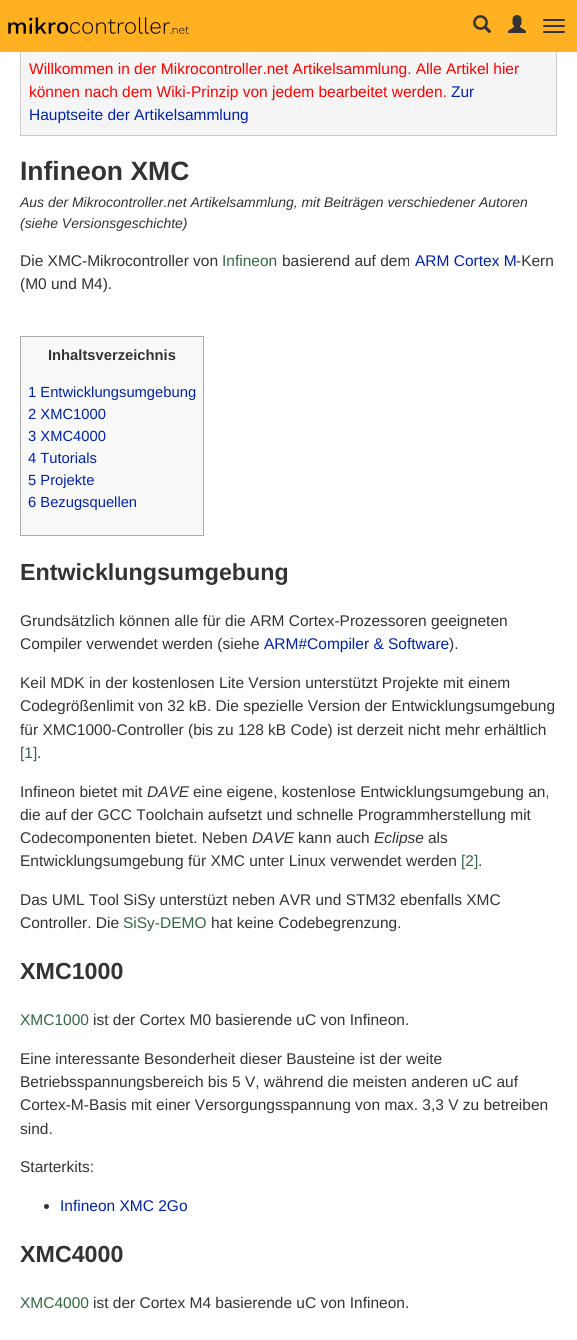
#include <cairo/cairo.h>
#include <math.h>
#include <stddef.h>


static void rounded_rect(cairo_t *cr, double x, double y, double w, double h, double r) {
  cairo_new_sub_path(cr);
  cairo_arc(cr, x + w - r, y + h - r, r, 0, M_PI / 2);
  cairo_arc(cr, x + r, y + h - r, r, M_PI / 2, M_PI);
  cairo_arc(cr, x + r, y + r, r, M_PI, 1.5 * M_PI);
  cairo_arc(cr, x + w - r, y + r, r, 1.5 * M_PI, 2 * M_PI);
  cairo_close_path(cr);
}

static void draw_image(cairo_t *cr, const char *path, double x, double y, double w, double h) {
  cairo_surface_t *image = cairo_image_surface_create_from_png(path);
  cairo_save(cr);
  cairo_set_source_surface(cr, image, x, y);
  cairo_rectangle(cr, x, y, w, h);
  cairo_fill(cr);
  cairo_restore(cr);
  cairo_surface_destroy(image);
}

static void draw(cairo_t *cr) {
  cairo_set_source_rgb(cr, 1, 1, 1);
  cairo_paint(cr);
  cairo_set_source_rgb(cr, 245 / 255.0, 245 / 255.0, 245 / 255.0);
  cairo_rectangle(cr, 21, 52, 535, 83);
  cairo_fill(cr);
  cairo_rectangle(cr, 20.5, 48.5, 536, 87);
  cairo_set_source_rgb(cr, 202 / 255.0, 202 / 255.0, 202 / 255.0);
  cairo_set_line_width(cr, 1);
  cairo_stroke(cr);
  cairo_set_source_rgb(cr, 1, 177 / 255.0, 34 / 255.0);
  cairo_rectangle(cr, 0, 0, 577, 52);
  cairo_fill(cr);
  draw_image(cr, "images/1.png", 8, 17, 181, 17);
  draw_image(cr, "images/2.png", 473, 15, 19, 19);
  draw_image(cr, "images/3.png", 508, 15, 18, 18);
  cairo_set_source_rgb(cr, 51 / 255.0, 51 / 255.0, 51 / 255.0);
  rounded_rect(cr, 543, 19, 22, 2, 1);
  cairo_fill(cr);
  rounded_rect(cr, 543, 25, 22, 2, 1);
  cairo_fill(cr);
  rounded_rect(cr, 543, 31, 22, 2, 1);
  cairo_fill(cr);
  cairo_set_source_rgb(cr, 249 / 255.0, 249 / 255.0, 249 / 255.0);
  cairo_rectangle(cr, 20.5, 336.5, 183, 199);
  cairo_fill_preserve(cr);
  cairo_set_source_rgb(cr, 170 / 255.0, 170 / 255.0, 170 / 255.0);
  cairo_stroke(cr);
  cairo_set_source_rgb(cr, 51 / 255.0, 51 / 255.0, 51 / 255.0);
  cairo_arc(cr, 46.5, 1206.5, 2.5, 0, 2 * M_PI);
  cairo_fill(cr);
  cairo_select_font_face(cr, "Liberation Sans", CAIRO_FONT_SLANT_NORMAL, CAIRO_FONT_WEIGHT_NORMAL);
  cairo_set_font_size(cr, 15.5);
  cairo_set_source_rgb(cr, 1, 0, 0);
  cairo_move_to(cr, 29, 74);
  cairo_show_text(cr, "Willkommen in der Mikrocontroller.net Artikelsammlung. Alle Artikel hier");
  cairo_move_to(cr, 29, 97);
  cairo_show_text(cr, "können nach dem Wiki-Prinzip von jedem bearbeitet werden.");
  cairo_set_source_rgb(cr, 0, 34 / 255.0, 170 / 255.0);
  cairo_move_to(cr, 451, 97);
  cairo_show_text(cr, "Zur");
  cairo_move_to(cr, 29, 120);
  cairo_show_text(cr, "Hauptseite der Artikelsammlung");
  cairo_select_font_face(cr, "Liberation Sans", CAIRO_FONT_SLANT_NORMAL, CAIRO_FONT_WEIGHT_BOLD);
  cairo_set_font_size(cr, 26.5);
  cairo_set_source_rgb(cr, 51 / 255.0, 51 / 255.0, 51 / 255.0);
  cairo_move_to(cr, 20, 180);
  cairo_show_text(cr, "Infineon XMC");
  cairo_select_font_face(cr, "Liberation Sans", CAIRO_FONT_SLANT_ITALIC, CAIRO_FONT_WEIGHT_NORMAL);
  cairo_set_font_size(cr, 13.95);
  cairo_move_to(cr, 20, 207);
  cairo_show_text(cr, "Aus der Mikrocontroller.net Artikelsammlung, mit Beiträgen verschiedener Autoren");
  cairo_move_to(cr, 20, 228);
  cairo_show_text(cr, "(siehe Versionsgeschichte)");
  cairo_select_font_face(cr, "Liberation Sans", CAIRO_FONT_SLANT_NORMAL, CAIRO_FONT_WEIGHT_NORMAL);
  cairo_set_font_size(cr, 15.5);
  cairo_move_to(cr, 20, 266);
  cairo_show_text(cr, "Die XMC-Mikrocontroller von");
  cairo_set_source_rgb(cr, 51 / 255.0, 102 / 255.0, 68 / 255.0);
  cairo_move_to(cr, 222, 266);
  cairo_show_text(cr, "Infineon");
  cairo_set_source_rgb(cr, 51 / 255.0, 51 / 255.0, 51 / 255.0);
  cairo_move_to(cr, 282, 266);
  cairo_show_text(cr, "basierend auf dem");
  cairo_set_source_rgb(cr, 0, 34 / 255.0, 170 / 255.0);
  cairo_move_to(cr, 415, 266);
  cairo_show_text(cr, "ARM Cortex M");
  cairo_set_source_rgb(cr, 51 / 255.0, 51 / 255.0, 51 / 255.0);
  cairo_move_to(cr, 516, 266);
  cairo_show_text(cr, "-Kern");
  cairo_move_to(cr, 20, 289);
  cairo_show_text(cr, "(M0 und M4).");
  cairo_select_font_face(cr, "Liberation Sans", CAIRO_FONT_SLANT_NORMAL, CAIRO_FONT_WEIGHT_BOLD);
  cairo_set_font_size(cr, 14.75);
  cairo_move_to(cr, 48, 360);
  cairo_show_text(cr, "Inhaltsverzeichnis");
  cairo_select_font_face(cr, "Liberation Sans", CAIRO_FONT_SLANT_NORMAL, CAIRO_FONT_WEIGHT_NORMAL);
  cairo_set_source_rgb(cr, 0, 34 / 255.0, 170 / 255.0);
  cairo_move_to(cr, 28, 397);
  cairo_show_text(cr, "1 Entwicklungsumgebung");
  cairo_move_to(cr, 28, 419);
  cairo_show_text(cr, "2 XMC1000");
  cairo_move_to(cr, 28, 441);
  cairo_show_text(cr, "3 XMC4000");
  cairo_move_to(cr, 28, 463);
  cairo_show_text(cr, "4 Tutorials");
  cairo_move_to(cr, 28, 485);
  cairo_show_text(cr, "5 Projekte");
  cairo_move_to(cr, 28, 507);
  cairo_show_text(cr, "6 Bezugsquellen");
  cairo_select_font_face(cr, "Liberation Sans", CAIRO_FONT_SLANT_NORMAL, CAIRO_FONT_WEIGHT_BOLD);
  cairo_set_font_size(cr, 23.25);
  cairo_set_source_rgb(cr, 51 / 255.0, 51 / 255.0, 51 / 255.0);
  cairo_move_to(cr, 20, 580);
  cairo_show_text(cr, "Entwicklungsumgebung");
  cairo_select_font_face(cr, "Liberation Sans", CAIRO_FONT_SLANT_NORMAL, CAIRO_FONT_WEIGHT_NORMAL);
  cairo_set_font_size(cr, 15.5);
  cairo_move_to(cr, 20, 626);
  cairo_show_text(cr, "Grundsätzlich können alle für die ARM Cortex-Prozessoren geeigneten");
  cairo_move_to(cr, 20, 649);
  cairo_show_text(cr, "Compiler verwendet werden (siehe");
  cairo_set_source_rgb(cr, 0, 34 / 255.0, 170 / 255.0);
  cairo_move_to(cr, 264, 649);
  cairo_show_text(cr, "ARM#Compiler & Software");
  cairo_set_source_rgb(cr, 51 / 255.0, 51 / 255.0, 51 / 255.0);
  cairo_move_to(cr, 449, 649);
  cairo_show_text(cr, ").");
  cairo_move_to(cr, 20, 688);
  cairo_show_text(cr, "Keil MDK in der kostenlosen Lite Version unterstützt Projekte mit einem");
  cairo_move_to(cr, 20, 711);
  cairo_show_text(cr, "Codegrößenlimit von 32 kB. Die spezielle Version der Entwicklungsumgebung");
  cairo_move_to(cr, 20, 735);
  cairo_show_text(cr, "für XMC1000-Controller (bis zu 128 kB Code) ist derzeit nicht mehr erhältlich");
  cairo_set_source_rgb(cr, 51 / 255.0, 102 / 255.0, 68 / 255.0);
  cairo_move_to(cr, 20, 758);
  cairo_show_text(cr, "[1]");
  cairo_set_source_rgb(cr, 51 / 255.0, 51 / 255.0, 51 / 255.0);
  cairo_move_to(cr, 37, 758);
  cairo_show_text(cr, ".");
  cairo_move_to(cr, 20, 797);
  cairo_show_text(cr, "Infineon bietet mit");
  cairo_select_font_face(cr, "Liberation Sans", CAIRO_FONT_SLANT_ITALIC, CAIRO_FONT_WEIGHT_NORMAL);
  cairo_move_to(cr, 147, 797);
  cairo_show_text(cr, "DAVE");
  cairo_select_font_face(cr, "Liberation Sans", CAIRO_FONT_SLANT_NORMAL, CAIRO_FONT_WEIGHT_NORMAL);
  cairo_move_to(cr, 193, 797);
  cairo_show_text(cr, "eine eigene, kostenlose Entwicklungsumgebung an,");
  cairo_move_to(cr, 20, 820);
  cairo_show_text(cr, "die auf der GCC Toolchain aufsetzt und schnelle Programmherstellung mit");
  cairo_move_to(cr, 20, 843);
  cairo_show_text(cr, "Codecomponenten bietet. Neben");
  cairo_select_font_face(cr, "Liberation Sans", CAIRO_FONT_SLANT_ITALIC, CAIRO_FONT_WEIGHT_NORMAL);
  cairo_move_to(cr, 252, 843);
  cairo_show_text(cr, "DAVE");
  cairo_select_font_face(cr, "Liberation Sans", CAIRO_FONT_SLANT_NORMAL, CAIRO_FONT_WEIGHT_NORMAL);
  cairo_move_to(cr, 298, 843);
  cairo_show_text(cr, "kann auch");
  cairo_select_font_face(cr, "Liberation Sans", CAIRO_FONT_SLANT_ITALIC, CAIRO_FONT_WEIGHT_NORMAL);
  cairo_move_to(cr, 374, 843);
  cairo_show_text(cr, "Eclipse");
  cairo_select_font_face(cr, "Liberation Sans", CAIRO_FONT_SLANT_NORMAL, CAIRO_FONT_WEIGHT_NORMAL);
  cairo_move_to(cr, 428, 843);
  cairo_show_text(cr, "als");
  cairo_move_to(cr, 20, 866);
  cairo_show_text(cr, "Entwicklungsumgebung für XMC unter Linux verwendet werden");
  cairo_set_source_rgb(cr, 51 / 255.0, 102 / 255.0, 68 / 255.0);
  cairo_move_to(cr, 461, 866);
  cairo_show_text(cr, "[2]");
  cairo_set_source_rgb(cr, 51 / 255.0, 51 / 255.0, 51 / 255.0);
  cairo_move_to(cr, 478, 866);
  cairo_show_text(cr, ".");
  cairo_move_to(cr, 20, 905);
  cairo_show_text(cr, "Das UML Tool SiSy unterstüzt neben AVR und STM32 ebenfalls XMC");
  cairo_move_to(cr, 20, 928);
  cairo_show_text(cr, "Controller. Die");
  cairo_set_source_rgb(cr, 51 / 255.0, 102 / 255.0, 68 / 255.0);
  cairo_move_to(cr, 123, 928);
  cairo_show_text(cr, "SiSy-DEMO");
  cairo_set_source_rgb(cr, 51 / 255.0, 51 / 255.0, 51 / 255.0);
  cairo_move_to(cr, 211, 928);
  cairo_show_text(cr, "hat keine Codebegrenzung.");
  cairo_select_font_face(cr, "Liberation Sans", CAIRO_FONT_SLANT_NORMAL, CAIRO_FONT_WEIGHT_BOLD);
  cairo_set_font_size(cr, 23.25);
  cairo_move_to(cr, 20, 979);
  cairo_show_text(cr, "XMC1000");
  cairo_select_font_face(cr, "Liberation Sans", CAIRO_FONT_SLANT_NORMAL, CAIRO_FONT_WEIGHT_NORMAL);
  cairo_set_font_size(cr, 15.5);
  cairo_set_source_rgb(cr, 51 / 255.0, 102 / 255.0, 68 / 255.0);
  cairo_move_to(cr, 20, 1025);
  cairo_show_text(cr, "XMC1000");
  cairo_set_source_rgb(cr, 51 / 255.0, 51 / 255.0, 51 / 255.0);
  cairo_move_to(cr, 93, 1025);
  cairo_show_text(cr, "ist der Cortex M0 basierende uC von Infineon.");
  cairo_move_to(cr, 20, 1064);
  cairo_show_text(cr, "Eine interessante Besonderheit dieser Bausteine ist der weite");
  cairo_move_to(cr, 20, 1087);
  cairo_show_text(cr, "Betriebsspannungsbereich bis 5 V, während die meisten anderen uC auf");
  cairo_move_to(cr, 20, 1110);
  cairo_show_text(cr, "Cortex-M-Basis mit einer Versorgungsspannung von max. 3,3 V zu betreiben");
  cairo_move_to(cr, 20, 1134);
  cairo_show_text(cr, "sind.");
  cairo_move_to(cr, 20, 1172);
  cairo_show_text(cr, "Starterkits:");
  cairo_set_source_rgb(cr, 0, 34 / 255.0, 170 / 255.0);
  cairo_move_to(cr, 60, 1211);
  cairo_show_text(cr, "Infineon XMC 2Go");
  cairo_select_font_face(cr, "Liberation Sans", CAIRO_FONT_SLANT_NORMAL, CAIRO_FONT_WEIGHT_BOLD);
  cairo_set_font_size(cr, 23.25);
  cairo_set_source_rgb(cr, 51 / 255.0, 51 / 255.0, 51 / 255.0);
  cairo_move_to(cr, 20, 1262);
  cairo_show_text(cr, "XMC4000");
  cairo_select_font_face(cr, "Liberation Sans", CAIRO_FONT_SLANT_NORMAL, CAIRO_FONT_WEIGHT_NORMAL);
  cairo_set_font_size(cr, 15.5);
  cairo_set_source_rgb(cr, 51 / 255.0, 102 / 255.0, 68 / 255.0);
  cairo_move_to(cr, 20, 1308);
  cairo_show_text(cr, "XMC4000");
  cairo_set_source_rgb(cr, 51 / 255.0, 51 / 255.0, 51 / 255.0);
  cairo_move_to(cr, 93, 1308);
  cairo_show_text(cr, "ist der Cortex M4 basierende uC von Infineon.");
}

int main(void) {
  cairo_surface_t *surface = cairo_image_surface_create(CAIRO_FORMAT_RGB24, 577, 1340);
  cairo_t *cr = cairo_create(surface);
  cairo_font_options_t *options = cairo_font_options_create();
  cairo_font_options_set_hint_metrics(options, CAIRO_HINT_METRICS_OFF);
  cairo_font_options_set_hint_style(options, CAIRO_HINT_STYLE_NONE);
  cairo_set_font_options(cr, options);
  cairo_set_miter_limit(cr, 4);
  draw(cr);
  cairo_surface_write_to_png(surface, "out.png");
  cairo_font_options_destroy(options);
  cairo_destroy(cr);
  cairo_surface_destroy(surface);
  return 0;
}
